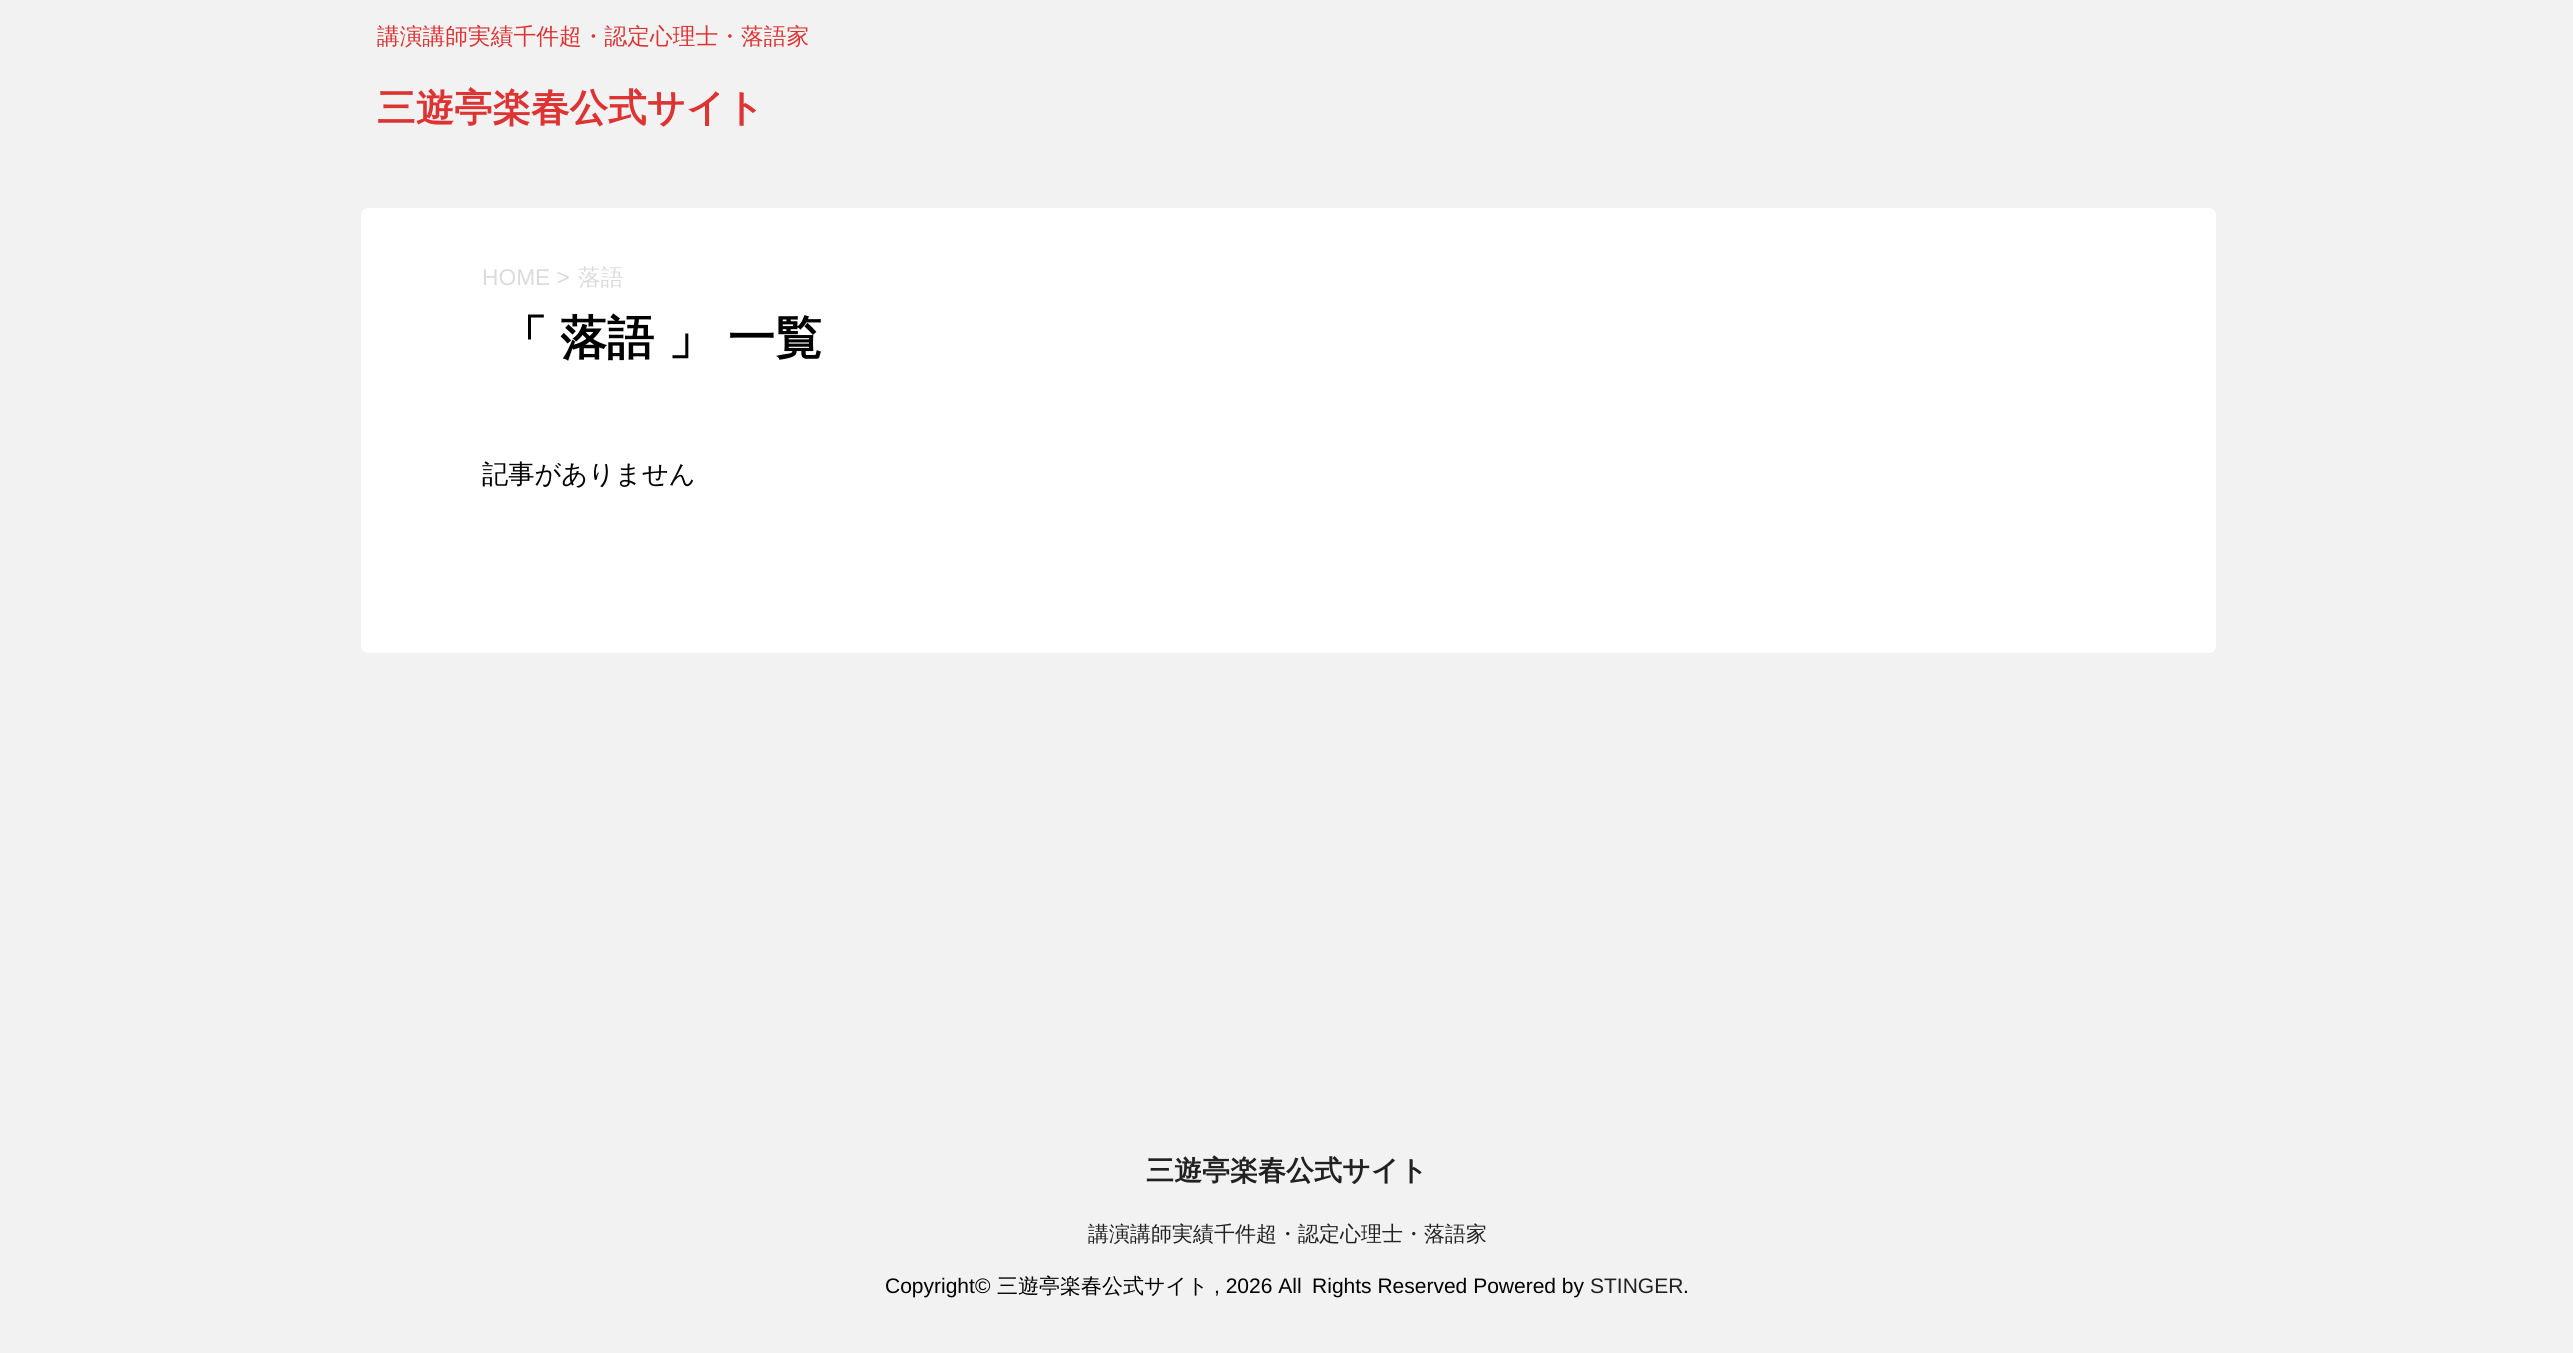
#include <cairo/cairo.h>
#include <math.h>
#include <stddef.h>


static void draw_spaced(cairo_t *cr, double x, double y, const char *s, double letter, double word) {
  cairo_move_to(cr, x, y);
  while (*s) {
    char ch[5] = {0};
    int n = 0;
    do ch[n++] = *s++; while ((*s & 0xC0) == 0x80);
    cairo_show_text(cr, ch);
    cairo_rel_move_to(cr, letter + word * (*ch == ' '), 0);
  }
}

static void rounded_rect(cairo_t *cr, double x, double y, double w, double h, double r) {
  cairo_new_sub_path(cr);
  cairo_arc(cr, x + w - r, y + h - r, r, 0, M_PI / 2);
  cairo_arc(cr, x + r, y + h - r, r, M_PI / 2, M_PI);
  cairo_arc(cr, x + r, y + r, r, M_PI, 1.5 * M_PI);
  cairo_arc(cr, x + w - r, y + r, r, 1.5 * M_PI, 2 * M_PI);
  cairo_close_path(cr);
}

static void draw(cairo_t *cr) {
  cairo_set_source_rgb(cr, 242 / 255.0, 242 / 255.0, 242 / 255.0);
  cairo_paint(cr);
  cairo_set_source_rgb(cr, 1, 1, 1);
  rounded_rect(cr, 361, 208, 1855, 445, 7);
  cairo_fill(cr);
  cairo_select_font_face(cr, "WenQuanYi Zen Hei Medium", CAIRO_FONT_SLANT_NORMAL, CAIRO_FONT_WEIGHT_NORMAL);
  cairo_set_font_size(cr, 22.75);
  cairo_set_source_rgb(cr, 221 / 255.0, 51 / 255.0, 51 / 255.0);
  cairo_move_to(cr, 377, 44);
  cairo_show_text(cr, "講演講師実績千件超・認定心理士・落語家");
  cairo_select_font_face(cr, "WenQuanYi Zen Hei", CAIRO_FONT_SLANT_NORMAL, CAIRO_FONT_WEIGHT_BOLD);
  cairo_set_font_size(cr, 38.5);
  cairo_move_to(cr, 377, 121);
  cairo_show_text(cr, "三遊亭楽春公式サイト");
  cairo_select_font_face(cr, "Liberation Sans", CAIRO_FONT_SLANT_NORMAL, CAIRO_FONT_WEIGHT_NORMAL);
  cairo_set_font_size(cr, 22.75);
  cairo_set_source_rgb(cr, 219 / 255.0, 219 / 255.0, 219 / 255.0);
  cairo_move_to(cr, 482, 285);
  cairo_show_text(cr, "HOME >");
  cairo_select_font_face(cr, "WenQuanYi Zen Hei Medium", CAIRO_FONT_SLANT_NORMAL, CAIRO_FONT_WEIGHT_NORMAL);
  cairo_move_to(cr, 578, 285);
  cairo_show_text(cr, "落語");
  cairo_select_font_face(cr, "WenQuanYi Zen Hei", CAIRO_FONT_SLANT_NORMAL, CAIRO_FONT_WEIGHT_BOLD);
  cairo_set_font_size(cr, 47);
  cairo_set_source_rgb(cr, 0, 0, 0);
  cairo_move_to(cr, 500, 354);
  cairo_show_text(cr, "「");
  cairo_move_to(cr, 560, 354);
  cairo_show_text(cr, "落語");
  draw_spaced(cr, 668, 354, "」 一覧", 0, -1);
  cairo_select_font_face(cr, "WenQuanYi Zen Hei Medium", CAIRO_FONT_SLANT_NORMAL, CAIRO_FONT_WEIGHT_NORMAL);
  cairo_set_font_size(cr, 26.25);
  cairo_move_to(cr, 482, 483);
  cairo_show_text(cr, "記事がありません");
  cairo_select_font_face(cr, "WenQuanYi Zen Hei", CAIRO_FONT_SLANT_NORMAL, CAIRO_FONT_WEIGHT_BOLD);
  cairo_set_font_size(cr, 28);
  cairo_set_source_rgb(cr, 33 / 255.0, 33 / 255.0, 33 / 255.0);
  cairo_move_to(cr, 1146, 1180);
  cairo_show_text(cr, "三遊亭楽春公式サイト");
  cairo_select_font_face(cr, "WenQuanYi Zen Hei Medium", CAIRO_FONT_SLANT_NORMAL, CAIRO_FONT_WEIGHT_NORMAL);
  cairo_set_font_size(cr, 21);
  cairo_move_to(cr, 1088, 1241);
  cairo_show_text(cr, "講演講師実績千件超・認定心理士・落語家");
  cairo_select_font_face(cr, "Liberation Sans", CAIRO_FONT_SLANT_NORMAL, CAIRO_FONT_WEIGHT_NORMAL);
  cairo_set_source_rgb(cr, 0, 0, 0);
  cairo_move_to(cr, 885, 1293);
  cairo_show_text(cr, "Copyright©");
  cairo_select_font_face(cr, "WenQuanYi Zen Hei Medium", CAIRO_FONT_SLANT_NORMAL, CAIRO_FONT_WEIGHT_NORMAL);
  cairo_move_to(cr, 997, 1293);
  cairo_show_text(cr, "三遊亭楽春公式サイト");
  cairo_select_font_face(cr, "Liberation Sans", CAIRO_FONT_SLANT_NORMAL, CAIRO_FONT_WEIGHT_NORMAL);
  cairo_move_to(cr, 1214, 1293);
  cairo_show_text(cr, ", 2026 All Rights Reserved Powered by");
  cairo_set_source_rgb(cr, 33 / 255.0, 33 / 255.0, 33 / 255.0);
  cairo_move_to(cr, 1590, 1293);
  cairo_show_text(cr, "STINGER");
  cairo_set_source_rgb(cr, 0, 0, 0);
  cairo_move_to(cr, 1683, 1293);
  cairo_show_text(cr, ".");
}

int main(void) {
  cairo_surface_t *surface = cairo_image_surface_create(CAIRO_FORMAT_RGB24, 2573, 1353);
  cairo_t *cr = cairo_create(surface);
  cairo_font_options_t *options = cairo_font_options_create();
  cairo_font_options_set_hint_metrics(options, CAIRO_HINT_METRICS_OFF);
  cairo_font_options_set_hint_style(options, CAIRO_HINT_STYLE_NONE);
  cairo_set_font_options(cr, options);
  cairo_set_miter_limit(cr, 4);
  draw(cr);
  cairo_surface_write_to_png(surface, "out.png");
  cairo_font_options_destroy(options);
  cairo_destroy(cr);
  cairo_surface_destroy(surface);
  return 0;
}
